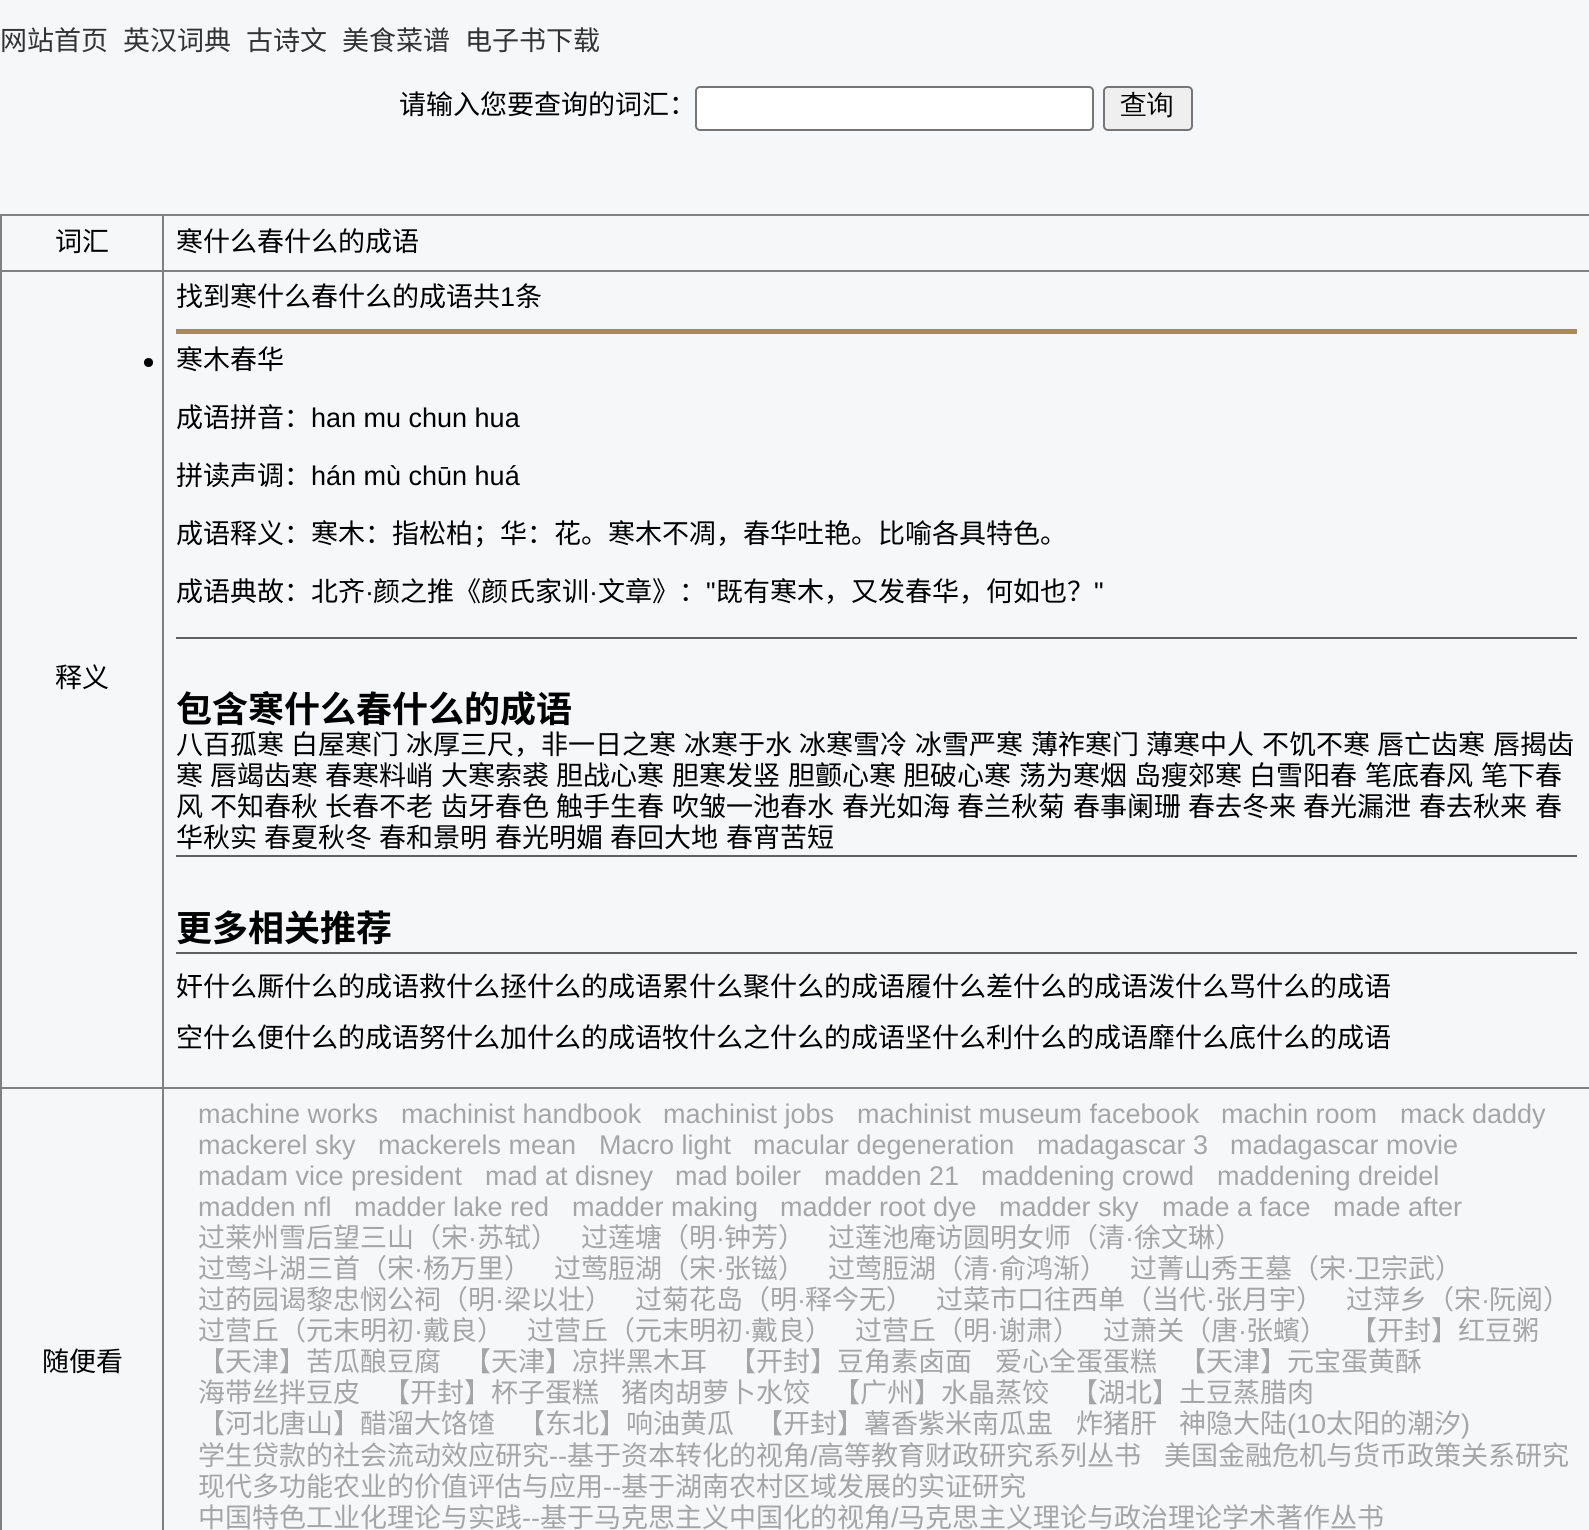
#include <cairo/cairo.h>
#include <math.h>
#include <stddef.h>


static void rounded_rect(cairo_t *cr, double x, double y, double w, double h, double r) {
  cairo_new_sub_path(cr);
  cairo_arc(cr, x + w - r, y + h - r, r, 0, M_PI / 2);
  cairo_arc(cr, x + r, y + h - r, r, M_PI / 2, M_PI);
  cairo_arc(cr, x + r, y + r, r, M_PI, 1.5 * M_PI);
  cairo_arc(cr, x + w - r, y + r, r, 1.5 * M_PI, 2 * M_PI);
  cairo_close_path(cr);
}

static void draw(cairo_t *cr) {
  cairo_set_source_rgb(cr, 245 / 255.0, 247 / 255.0, 249 / 255.0);
  cairo_paint(cr);
  cairo_set_source_rgb(cr, 1, 1, 1);
  rounded_rect(cr, 696, 87, 397, 43, 4);
  cairo_fill_preserve(cr);
  cairo_set_source_rgb(cr, 118 / 255.0, 118 / 255.0, 118 / 255.0);
  cairo_stroke(cr);
  cairo_set_source_rgb(cr, 239 / 255.0, 239 / 255.0, 239 / 255.0);
  rounded_rect(cr, 1104, 87, 88, 43, 4);
  cairo_fill_preserve(cr);
  cairo_set_source_rgb(cr, 118 / 255.0, 118 / 255.0, 118 / 255.0);
  cairo_stroke(cr);
  cairo_set_source_rgb(cr, 128 / 255.0, 128 / 255.0, 128 / 255.0);
  cairo_rectangle(cr, 0, 214, 1589, 2);
  cairo_fill(cr);
  cairo_rectangle(cr, 0, 214, 2, 1316);
  cairo_fill(cr);
  cairo_rectangle(cr, 162, 270, 1427, 2);
  cairo_fill(cr);
  cairo_rectangle(cr, 162, 1087, 1427, 2);
  cairo_fill(cr);
  cairo_rectangle(cr, 162, 1087, 2, 443);
  cairo_fill(cr);
  cairo_rectangle(cr, 0, 1087, 164, 2);
  cairo_fill(cr);
  cairo_rectangle(cr, 162, 270, 2, 819);
  cairo_fill(cr);
  cairo_rectangle(cr, 0, 270, 164, 2);
  cairo_fill(cr);
  cairo_rectangle(cr, 162, 214, 2, 58);
  cairo_fill(cr);
  cairo_set_source_rgb(cr, 170 / 255.0, 138 / 255.0, 87 / 255.0);
  cairo_rectangle(cr, 176, 329, 1401, 5);
  cairo_fill(cr);
  cairo_set_source_rgb(cr, 96 / 255.0, 96 / 255.0, 96 / 255.0);
  cairo_rectangle(cr, 176, 637, 1401, 2);
  cairo_fill(cr);
  cairo_set_source_rgb(cr, 0, 0, 0);
  cairo_arc(cr, 148.5, 362.5, 4.5, 0, 2 * M_PI);
  cairo_fill(cr);
  cairo_set_source_rgb(cr, 96 / 255.0, 96 / 255.0, 96 / 255.0);
  cairo_rectangle(cr, 176, 855, 1401, 2);
  cairo_fill(cr);
  cairo_rectangle(cr, 176, 952, 1401, 2);
  cairo_fill(cr);
  cairo_select_font_face(cr, "Noto Sans CJK SC", CAIRO_FONT_SLANT_NORMAL, CAIRO_FONT_WEIGHT_NORMAL);
  cairo_set_font_size(cr, 27);
  cairo_set_source_rgb(cr, 51 / 255.0, 51 / 255.0, 51 / 255.0);
  cairo_move_to(cr, 0, 50);
  cairo_show_text(cr, "网站首页");
  cairo_move_to(cr, 123, 50);
  cairo_show_text(cr, "英汉词典");
  cairo_move_to(cr, 246, 50);
  cairo_show_text(cr, "古诗文");
  cairo_move_to(cr, 342, 50);
  cairo_show_text(cr, "美食菜谱");
  cairo_move_to(cr, 465, 50);
  cairo_show_text(cr, "电子书下载");
  cairo_set_source_rgb(cr, 0, 0, 0);
  cairo_move_to(cr, 399, 114);
  cairo_show_text(cr, "请输入您要查询的词汇：");
  cairo_select_font_face(cr, "WenQuanYi Zen Hei Medium", CAIRO_FONT_SLANT_NORMAL, CAIRO_FONT_WEIGHT_NORMAL);
  cairo_move_to(cr, 1120, 114);
  cairo_show_text(cr, "查询");
  cairo_select_font_face(cr, "Noto Sans CJK SC", CAIRO_FONT_SLANT_NORMAL, CAIRO_FONT_WEIGHT_NORMAL);
  cairo_move_to(cr, 55, 251);
  cairo_show_text(cr, "词汇");
  cairo_move_to(cr, 176, 251);
  cairo_show_text(cr, "寒什么春什么的成语");
  cairo_move_to(cr, 55, 687);
  cairo_show_text(cr, "释义");
  cairo_move_to(cr, 176, 306);
  cairo_show_text(cr, "找到寒什么春什么的成语共");
  cairo_select_font_face(cr, "Liberation Sans", CAIRO_FONT_SLANT_NORMAL, CAIRO_FONT_WEIGHT_NORMAL);
  cairo_move_to(cr, 500, 306);
  cairo_show_text(cr, "1");
  cairo_select_font_face(cr, "Noto Sans CJK SC", CAIRO_FONT_SLANT_NORMAL, CAIRO_FONT_WEIGHT_NORMAL);
  cairo_move_to(cr, 515, 306);
  cairo_show_text(cr, "条");
  cairo_move_to(cr, 176, 369);
  cairo_show_text(cr, "寒木春华");
  cairo_move_to(cr, 176, 427);
  cairo_show_text(cr, "成语拼音：");
  cairo_select_font_face(cr, "Liberation Sans", CAIRO_FONT_SLANT_NORMAL, CAIRO_FONT_WEIGHT_NORMAL);
  cairo_move_to(cr, 311, 427);
  cairo_show_text(cr, "han mu chun hua");
  cairo_select_font_face(cr, "Noto Sans CJK SC", CAIRO_FONT_SLANT_NORMAL, CAIRO_FONT_WEIGHT_NORMAL);
  cairo_move_to(cr, 176, 485);
  cairo_show_text(cr, "拼读声调：");
  cairo_select_font_face(cr, "Liberation Sans", CAIRO_FONT_SLANT_NORMAL, CAIRO_FONT_WEIGHT_NORMAL);
  cairo_move_to(cr, 311, 485);
  cairo_show_text(cr, "hán mù chūn huá");
  cairo_select_font_face(cr, "Noto Sans CJK SC", CAIRO_FONT_SLANT_NORMAL, CAIRO_FONT_WEIGHT_NORMAL);
  cairo_move_to(cr, 176, 543);
  cairo_show_text(cr, "成语释义：寒木：指松柏；华：花。寒木不凋，春华吐艳。比喻各具特色。");
  cairo_move_to(cr, 176, 601);
  cairo_show_text(cr, "成语典故：北齐");
  cairo_move_to(cr, 373, 601);
  cairo_show_text(cr, "颜之推《颜氏家训");
  cairo_move_to(cr, 598, 601);
  cairo_show_text(cr, "文章》：");
  cairo_select_font_face(cr, "Liberation Sans", CAIRO_FONT_SLANT_NORMAL, CAIRO_FONT_WEIGHT_NORMAL);
  cairo_move_to(cr, 706, 601);
  cairo_show_text(cr, "\"");
  cairo_select_font_face(cr, "Noto Sans CJK SC", CAIRO_FONT_SLANT_NORMAL, CAIRO_FONT_WEIGHT_NORMAL);
  cairo_move_to(cr, 716, 601);
  cairo_show_text(cr, "既有寒木，又发春华，何如也？");
  cairo_select_font_face(cr, "Liberation Sans", CAIRO_FONT_SLANT_NORMAL, CAIRO_FONT_WEIGHT_NORMAL);
  cairo_move_to(cr, 1094, 601);
  cairo_show_text(cr, "\"");
  cairo_move_to(cr, 365, 601);
  cairo_show_text(cr, "·");
  cairo_move_to(cr, 589, 601);
  cairo_show_text(cr, "·");
  cairo_select_font_face(cr, "Noto Sans CJK SC", CAIRO_FONT_SLANT_NORMAL, CAIRO_FONT_WEIGHT_BOLD);
  cairo_set_font_size(cr, 36);
  cairo_move_to(cr, 176, 722);
  cairo_show_text(cr, "包含寒什么春什么的成语");
  cairo_select_font_face(cr, "Noto Sans CJK SC", CAIRO_FONT_SLANT_NORMAL, CAIRO_FONT_WEIGHT_NORMAL);
  cairo_set_font_size(cr, 27);
  cairo_move_to(cr, 176, 754);
  cairo_show_text(cr, "八百孤寒");
  cairo_move_to(cr, 291, 754);
  cairo_show_text(cr, "白屋寒门");
  cairo_move_to(cr, 406, 754);
  cairo_show_text(cr, "冰厚三尺，非一日之寒");
  cairo_move_to(cr, 684, 754);
  cairo_show_text(cr, "冰寒于水");
  cairo_move_to(cr, 799, 754);
  cairo_show_text(cr, "冰寒雪冷");
  cairo_move_to(cr, 915, 754);
  cairo_show_text(cr, "冰雪严寒");
  cairo_move_to(cr, 1031, 754);
  cairo_show_text(cr, "薄祚寒门");
  cairo_move_to(cr, 1146, 754);
  cairo_show_text(cr, "薄寒中人");
  cairo_move_to(cr, 1262, 754);
  cairo_show_text(cr, "不饥不寒");
  cairo_move_to(cr, 1377, 754);
  cairo_show_text(cr, "唇亡齿寒");
  cairo_move_to(cr, 1493, 754);
  cairo_show_text(cr, "唇揭齿");
  cairo_move_to(cr, 176, 785);
  cairo_show_text(cr, "寒");
  cairo_move_to(cr, 210, 785);
  cairo_show_text(cr, "唇竭齿寒");
  cairo_move_to(cr, 325, 785);
  cairo_show_text(cr, "春寒料峭");
  cairo_move_to(cr, 441, 785);
  cairo_show_text(cr, "大寒索裘");
  cairo_move_to(cr, 556, 785);
  cairo_show_text(cr, "胆战心寒");
  cairo_move_to(cr, 672, 785);
  cairo_show_text(cr, "胆寒发竖");
  cairo_move_to(cr, 788, 785);
  cairo_show_text(cr, "胆颤心寒");
  cairo_move_to(cr, 903, 785);
  cairo_show_text(cr, "胆破心寒");
  cairo_move_to(cr, 1019, 785);
  cairo_show_text(cr, "荡为寒烟");
  cairo_move_to(cr, 1134, 785);
  cairo_show_text(cr, "岛瘦郊寒");
  cairo_move_to(cr, 1249, 785);
  cairo_show_text(cr, "白雪阳春");
  cairo_move_to(cr, 1365, 785);
  cairo_show_text(cr, "笔底春风");
  cairo_move_to(cr, 1481, 785);
  cairo_show_text(cr, "笔下春");
  cairo_move_to(cr, 176, 816);
  cairo_show_text(cr, "风");
  cairo_move_to(cr, 210, 816);
  cairo_show_text(cr, "不知春秋");
  cairo_move_to(cr, 325, 816);
  cairo_show_text(cr, "长春不老");
  cairo_move_to(cr, 441, 816);
  cairo_show_text(cr, "齿牙春色");
  cairo_move_to(cr, 556, 816);
  cairo_show_text(cr, "触手生春");
  cairo_move_to(cr, 672, 816);
  cairo_show_text(cr, "吹皱一池春水");
  cairo_move_to(cr, 842, 816);
  cairo_show_text(cr, "春光如海");
  cairo_move_to(cr, 957, 816);
  cairo_show_text(cr, "春兰秋菊");
  cairo_move_to(cr, 1073, 816);
  cairo_show_text(cr, "春事阑珊");
  cairo_move_to(cr, 1188, 816);
  cairo_show_text(cr, "春去冬来");
  cairo_move_to(cr, 1303, 816);
  cairo_show_text(cr, "春光漏泄");
  cairo_move_to(cr, 1419, 816);
  cairo_show_text(cr, "春去秋来");
  cairo_move_to(cr, 1535, 816);
  cairo_show_text(cr, "春");
  cairo_move_to(cr, 176, 847);
  cairo_show_text(cr, "华秋实");
  cairo_move_to(cr, 264, 847);
  cairo_show_text(cr, "春夏秋冬");
  cairo_move_to(cr, 379, 847);
  cairo_show_text(cr, "春和景明");
  cairo_move_to(cr, 495, 847);
  cairo_show_text(cr, "春光明媚");
  cairo_move_to(cr, 610, 847);
  cairo_show_text(cr, "春回大地");
  cairo_move_to(cr, 726, 847);
  cairo_show_text(cr, "春宵苦短");
  cairo_select_font_face(cr, "Noto Sans CJK SC", CAIRO_FONT_SLANT_NORMAL, CAIRO_FONT_WEIGHT_BOLD);
  cairo_set_font_size(cr, 36);
  cairo_move_to(cr, 176, 941);
  cairo_show_text(cr, "更多相关推荐");
  cairo_select_font_face(cr, "Noto Sans CJK SC", CAIRO_FONT_SLANT_NORMAL, CAIRO_FONT_WEIGHT_NORMAL);
  cairo_set_font_size(cr, 27);
  cairo_move_to(cr, 176, 996);
  cairo_show_text(cr, "奸什么厮什么的成语救什么拯什么的成语累什么聚什么的成语履什么差什么的成语泼什么骂什么的成语");
  cairo_move_to(cr, 176, 1047);
  cairo_show_text(cr, "空什么便什么的成语努什么加什么的成语牧什么之什么的成语坚什么利什么的成语靡什么底什么的成语");
  cairo_move_to(cr, 42, 1371);
  cairo_show_text(cr, "随便看");
  cairo_select_font_face(cr, "Liberation Sans", CAIRO_FONT_SLANT_NORMAL, CAIRO_FONT_WEIGHT_NORMAL);
  cairo_set_source_rgb(cr, 165 / 255.0, 165 / 255.0, 165 / 255.0);
  cairo_move_to(cr, 198, 1123);
  cairo_show_text(cr, "machine works");
  cairo_move_to(cr, 401, 1123);
  cairo_show_text(cr, "machinist handbook");
  cairo_move_to(cr, 663, 1123);
  cairo_show_text(cr, "machinist jobs");
  cairo_move_to(cr, 857, 1123);
  cairo_show_text(cr, "machinist museum facebook");
  cairo_move_to(cr, 1221, 1123);
  cairo_show_text(cr, "machin room");
  cairo_move_to(cr, 1400, 1123);
  cairo_show_text(cr, "mack daddy");
  cairo_move_to(cr, 198, 1154);
  cairo_show_text(cr, "mackerel sky");
  cairo_move_to(cr, 378, 1154);
  cairo_show_text(cr, "mackerels mean");
  cairo_move_to(cr, 599, 1154);
  cairo_show_text(cr, "Macro light");
  cairo_move_to(cr, 753, 1154);
  cairo_show_text(cr, "macular degeneration");
  cairo_move_to(cr, 1037, 1154);
  cairo_show_text(cr, "madagascar 3");
  cairo_move_to(cr, 1230, 1154);
  cairo_show_text(cr, "madagascar movie");
  cairo_move_to(cr, 198, 1185);
  cairo_show_text(cr, "madam vice president");
  cairo_move_to(cr, 485, 1185);
  cairo_show_text(cr, "mad at disney");
  cairo_move_to(cr, 675, 1185);
  cairo_show_text(cr, "mad boiler");
  cairo_move_to(cr, 824, 1185);
  cairo_show_text(cr, "madden 21");
  cairo_move_to(cr, 981, 1185);
  cairo_show_text(cr, "maddening crowd");
  cairo_move_to(cr, 1217, 1185);
  cairo_show_text(cr, "maddening dreidel");
  cairo_move_to(cr, 198, 1216);
  cairo_show_text(cr, "madden nfl");
  cairo_move_to(cr, 354, 1216);
  cairo_show_text(cr, "madder lake red");
  cairo_move_to(cr, 572, 1216);
  cairo_show_text(cr, "madder making");
  cairo_move_to(cr, 780, 1216);
  cairo_show_text(cr, "madder root dye");
  cairo_move_to(cr, 999, 1216);
  cairo_show_text(cr, "madder sky");
  cairo_move_to(cr, 1162, 1216);
  cairo_show_text(cr, "made a face");
  cairo_move_to(cr, 1333, 1216);
  cairo_show_text(cr, "made after");
  cairo_select_font_face(cr, "Noto Sans CJK SC", CAIRO_FONT_SLANT_NORMAL, CAIRO_FONT_WEIGHT_NORMAL);
  cairo_move_to(cr, 198, 1247);
  cairo_show_text(cr, "过莱州雪后望三山（宋");
  cairo_select_font_face(cr, "Liberation Sans", CAIRO_FONT_SLANT_NORMAL, CAIRO_FONT_WEIGHT_NORMAL);
  cairo_move_to(cr, 468, 1247);
  cairo_show_text(cr, "·");
  cairo_select_font_face(cr, "Noto Sans CJK SC", CAIRO_FONT_SLANT_NORMAL, CAIRO_FONT_WEIGHT_NORMAL);
  cairo_move_to(cr, 477, 1247);
  cairo_show_text(cr, "苏轼）");
  cairo_move_to(cr, 581, 1247);
  cairo_show_text(cr, "过莲塘（明");
  cairo_select_font_face(cr, "Liberation Sans", CAIRO_FONT_SLANT_NORMAL, CAIRO_FONT_WEIGHT_NORMAL);
  cairo_move_to(cr, 716, 1247);
  cairo_show_text(cr, "·");
  cairo_select_font_face(cr, "Noto Sans CJK SC", CAIRO_FONT_SLANT_NORMAL, CAIRO_FONT_WEIGHT_NORMAL);
  cairo_move_to(cr, 724, 1247);
  cairo_show_text(cr, "钟芳）");
  cairo_move_to(cr, 828, 1247);
  cairo_show_text(cr, "过莲池庵访圆明女师（清");
  cairo_select_font_face(cr, "Liberation Sans", CAIRO_FONT_SLANT_NORMAL, CAIRO_FONT_WEIGHT_NORMAL);
  cairo_move_to(cr, 1125, 1247);
  cairo_show_text(cr, "·");
  cairo_select_font_face(cr, "Noto Sans CJK SC", CAIRO_FONT_SLANT_NORMAL, CAIRO_FONT_WEIGHT_NORMAL);
  cairo_move_to(cr, 1134, 1247);
  cairo_show_text(cr, "徐文琳）");
  cairo_move_to(cr, 198, 1278);
  cairo_show_text(cr, "过莺斗湖三首（宋");
  cairo_select_font_face(cr, "Liberation Sans", CAIRO_FONT_SLANT_NORMAL, CAIRO_FONT_WEIGHT_NORMAL);
  cairo_move_to(cr, 414, 1278);
  cairo_show_text(cr, "·");
  cairo_select_font_face(cr, "Noto Sans CJK SC", CAIRO_FONT_SLANT_NORMAL, CAIRO_FONT_WEIGHT_NORMAL);
  cairo_move_to(cr, 423, 1278);
  cairo_show_text(cr, "杨万里）");
  cairo_move_to(cr, 554, 1278);
  cairo_show_text(cr, "过莺脰湖（宋");
  cairo_select_font_face(cr, "Liberation Sans", CAIRO_FONT_SLANT_NORMAL, CAIRO_FONT_WEIGHT_NORMAL);
  cairo_move_to(cr, 716, 1278);
  cairo_show_text(cr, "·");
  cairo_select_font_face(cr, "Noto Sans CJK SC", CAIRO_FONT_SLANT_NORMAL, CAIRO_FONT_WEIGHT_NORMAL);
  cairo_move_to(cr, 724, 1278);
  cairo_show_text(cr, "张镃）");
  cairo_move_to(cr, 828, 1278);
  cairo_show_text(cr, "过莺脰湖（清");
  cairo_select_font_face(cr, "Liberation Sans", CAIRO_FONT_SLANT_NORMAL, CAIRO_FONT_WEIGHT_NORMAL);
  cairo_move_to(cr, 990, 1278);
  cairo_show_text(cr, "·");
  cairo_select_font_face(cr, "Noto Sans CJK SC", CAIRO_FONT_SLANT_NORMAL, CAIRO_FONT_WEIGHT_NORMAL);
  cairo_move_to(cr, 999, 1278);
  cairo_show_text(cr, "俞鸿渐）");
  cairo_move_to(cr, 1130, 1278);
  cairo_show_text(cr, "过菁山秀王墓（宋");
  cairo_select_font_face(cr, "Liberation Sans", CAIRO_FONT_SLANT_NORMAL, CAIRO_FONT_WEIGHT_NORMAL);
  cairo_move_to(cr, 1346, 1278);
  cairo_show_text(cr, "·");
  cairo_select_font_face(cr, "Noto Sans CJK SC", CAIRO_FONT_SLANT_NORMAL, CAIRO_FONT_WEIGHT_NORMAL);
  cairo_move_to(cr, 1354, 1278);
  cairo_show_text(cr, "卫宗武）");
  cairo_move_to(cr, 198, 1309);
  cairo_show_text(cr, "过菂园谒黎忠悯公祠（明");
  cairo_select_font_face(cr, "Liberation Sans", CAIRO_FONT_SLANT_NORMAL, CAIRO_FONT_WEIGHT_NORMAL);
  cairo_move_to(cr, 495, 1309);
  cairo_show_text(cr, "·");
  cairo_select_font_face(cr, "Noto Sans CJK SC", CAIRO_FONT_SLANT_NORMAL, CAIRO_FONT_WEIGHT_NORMAL);
  cairo_move_to(cr, 504, 1309);
  cairo_show_text(cr, "梁以壮）");
  cairo_move_to(cr, 635, 1309);
  cairo_show_text(cr, "过菊花岛（明");
  cairo_select_font_face(cr, "Liberation Sans", CAIRO_FONT_SLANT_NORMAL, CAIRO_FONT_WEIGHT_NORMAL);
  cairo_move_to(cr, 797, 1309);
  cairo_show_text(cr, "·");
  cairo_select_font_face(cr, "Noto Sans CJK SC", CAIRO_FONT_SLANT_NORMAL, CAIRO_FONT_WEIGHT_NORMAL);
  cairo_move_to(cr, 805, 1309);
  cairo_show_text(cr, "释今无）");
  cairo_move_to(cr, 936, 1309);
  cairo_show_text(cr, "过菜市口往西单（当代");
  cairo_select_font_face(cr, "Liberation Sans", CAIRO_FONT_SLANT_NORMAL, CAIRO_FONT_WEIGHT_NORMAL);
  cairo_move_to(cr, 1206, 1309);
  cairo_show_text(cr, "·");
  cairo_select_font_face(cr, "Noto Sans CJK SC", CAIRO_FONT_SLANT_NORMAL, CAIRO_FONT_WEIGHT_NORMAL);
  cairo_move_to(cr, 1215, 1309);
  cairo_show_text(cr, "张月宇）");
  cairo_move_to(cr, 1346, 1309);
  cairo_show_text(cr, "过萍乡（宋");
  cairo_select_font_face(cr, "Liberation Sans", CAIRO_FONT_SLANT_NORMAL, CAIRO_FONT_WEIGHT_NORMAL);
  cairo_move_to(cr, 1481, 1309);
  cairo_show_text(cr, "·");
  cairo_select_font_face(cr, "Noto Sans CJK SC", CAIRO_FONT_SLANT_NORMAL, CAIRO_FONT_WEIGHT_NORMAL);
  cairo_move_to(cr, 1489, 1309);
  cairo_show_text(cr, "阮阅）");
  cairo_move_to(cr, 198, 1340);
  cairo_show_text(cr, "过营丘（元末明初");
  cairo_select_font_face(cr, "Liberation Sans", CAIRO_FONT_SLANT_NORMAL, CAIRO_FONT_WEIGHT_NORMAL);
  cairo_move_to(cr, 414, 1340);
  cairo_show_text(cr, "·");
  cairo_select_font_face(cr, "Noto Sans CJK SC", CAIRO_FONT_SLANT_NORMAL, CAIRO_FONT_WEIGHT_NORMAL);
  cairo_move_to(cr, 423, 1340);
  cairo_show_text(cr, "戴良）");
  cairo_move_to(cr, 527, 1340);
  cairo_show_text(cr, "过营丘（元末明初");
  cairo_select_font_face(cr, "Liberation Sans", CAIRO_FONT_SLANT_NORMAL, CAIRO_FONT_WEIGHT_NORMAL);
  cairo_move_to(cr, 743, 1340);
  cairo_show_text(cr, "·");
  cairo_select_font_face(cr, "Noto Sans CJK SC", CAIRO_FONT_SLANT_NORMAL, CAIRO_FONT_WEIGHT_NORMAL);
  cairo_move_to(cr, 751, 1340);
  cairo_show_text(cr, "戴良）");
  cairo_move_to(cr, 855, 1340);
  cairo_show_text(cr, "过营丘（明");
  cairo_select_font_face(cr, "Liberation Sans", CAIRO_FONT_SLANT_NORMAL, CAIRO_FONT_WEIGHT_NORMAL);
  cairo_move_to(cr, 990, 1340);
  cairo_show_text(cr, "·");
  cairo_select_font_face(cr, "Noto Sans CJK SC", CAIRO_FONT_SLANT_NORMAL, CAIRO_FONT_WEIGHT_NORMAL);
  cairo_move_to(cr, 999, 1340);
  cairo_show_text(cr, "谢肃）");
  cairo_move_to(cr, 1103, 1340);
  cairo_show_text(cr, "过萧关（唐");
  cairo_select_font_face(cr, "Liberation Sans", CAIRO_FONT_SLANT_NORMAL, CAIRO_FONT_WEIGHT_NORMAL);
  cairo_move_to(cr, 1238, 1340);
  cairo_show_text(cr, "·");
  cairo_select_font_face(cr, "Noto Sans CJK SC", CAIRO_FONT_SLANT_NORMAL, CAIRO_FONT_WEIGHT_NORMAL);
  cairo_move_to(cr, 1246, 1340);
  cairo_show_text(cr, "张蠙）");
  cairo_move_to(cr, 1350, 1340);
  cairo_show_text(cr, "【开封】红豆粥");
  cairo_move_to(cr, 198, 1371);
  cairo_show_text(cr, "【天津】苦瓜酿豆腐");
  cairo_move_to(cr, 464, 1371);
  cairo_show_text(cr, "【天津】凉拌黑木耳");
  cairo_move_to(cr, 729, 1371);
  cairo_show_text(cr, "【开封】豆角素卤面");
  cairo_move_to(cr, 995, 1371);
  cairo_show_text(cr, "爱心全蛋蛋糕");
  cairo_move_to(cr, 1179, 1371);
  cairo_show_text(cr, "【天津】元宝蛋黄酥");
  cairo_move_to(cr, 198, 1402);
  cairo_show_text(cr, "海带丝拌豆皮");
  cairo_move_to(cr, 383, 1402);
  cairo_show_text(cr, "【开封】杯子蛋糕");
  cairo_move_to(cr, 621, 1402);
  cairo_show_text(cr, "猪肉胡萝卜水饺");
  cairo_move_to(cr, 833, 1402);
  cairo_show_text(cr, "【广州】水晶蒸饺");
  cairo_move_to(cr, 1071, 1402);
  cairo_show_text(cr, "【湖北】土豆蒸腊肉");
  cairo_move_to(cr, 198, 1433);
  cairo_show_text(cr, "【河北唐山】醋溜大饹馇");
  cairo_move_to(cr, 518, 1433);
  cairo_show_text(cr, "【东北】响油黄瓜");
  cairo_move_to(cr, 756, 1433);
  cairo_show_text(cr, "【开封】薯香紫米南瓜盅");
  cairo_move_to(cr, 1076, 1433);
  cairo_show_text(cr, "炸猪肝");
  cairo_move_to(cr, 1179, 1433);
  cairo_show_text(cr, "神隐大陆");
  cairo_select_font_face(cr, "Liberation Sans", CAIRO_FONT_SLANT_NORMAL, CAIRO_FONT_WEIGHT_NORMAL);
  cairo_move_to(cr, 1287, 1433);
  cairo_show_text(cr, "(10");
  cairo_select_font_face(cr, "Noto Sans CJK SC", CAIRO_FONT_SLANT_NORMAL, CAIRO_FONT_WEIGHT_NORMAL);
  cairo_move_to(cr, 1326, 1433);
  cairo_show_text(cr, "太阳的潮汐");
  cairo_select_font_face(cr, "Liberation Sans", CAIRO_FONT_SLANT_NORMAL, CAIRO_FONT_WEIGHT_NORMAL);
  cairo_move_to(cr, 1461, 1433);
  cairo_show_text(cr, ")");
  cairo_select_font_face(cr, "Noto Sans CJK SC", CAIRO_FONT_SLANT_NORMAL, CAIRO_FONT_WEIGHT_NORMAL);
  cairo_move_to(cr, 198, 1465);
  cairo_show_text(cr, "学生贷款的社会流动效应研究");
  cairo_select_font_face(cr, "Liberation Sans", CAIRO_FONT_SLANT_NORMAL, CAIRO_FONT_WEIGHT_NORMAL);
  cairo_move_to(cr, 549, 1465);
  cairo_show_text(cr, "--");
  cairo_select_font_face(cr, "Noto Sans CJK SC", CAIRO_FONT_SLANT_NORMAL, CAIRO_FONT_WEIGHT_NORMAL);
  cairo_move_to(cr, 567, 1465);
  cairo_show_text(cr, "基于资本转化的视角");
  cairo_select_font_face(cr, "Liberation Sans", CAIRO_FONT_SLANT_NORMAL, CAIRO_FONT_WEIGHT_NORMAL);
  cairo_move_to(cr, 810, 1465);
  cairo_show_text(cr, "/");
  cairo_select_font_face(cr, "Noto Sans CJK SC", CAIRO_FONT_SLANT_NORMAL, CAIRO_FONT_WEIGHT_NORMAL);
  cairo_move_to(cr, 817, 1465);
  cairo_show_text(cr, "高等教育财政研究系列丛书");
  cairo_move_to(cr, 1164, 1465);
  cairo_show_text(cr, "美国金融危机与货币政策关系研究");
  cairo_move_to(cr, 198, 1496);
  cairo_show_text(cr, "现代多功能农业的价值评估与应用");
  cairo_select_font_face(cr, "Liberation Sans", CAIRO_FONT_SLANT_NORMAL, CAIRO_FONT_WEIGHT_NORMAL);
  cairo_move_to(cr, 603, 1496);
  cairo_show_text(cr, "--");
  cairo_select_font_face(cr, "Noto Sans CJK SC", CAIRO_FONT_SLANT_NORMAL, CAIRO_FONT_WEIGHT_NORMAL);
  cairo_move_to(cr, 621, 1496);
  cairo_show_text(cr, "基于湖南农村区域发展的实证研究");
  cairo_move_to(cr, 198, 1527);
  cairo_show_text(cr, "中国特色工业化理论与实践");
  cairo_select_font_face(cr, "Liberation Sans", CAIRO_FONT_SLANT_NORMAL, CAIRO_FONT_WEIGHT_NORMAL);
  cairo_move_to(cr, 522, 1527);
  cairo_show_text(cr, "--");
  cairo_select_font_face(cr, "Noto Sans CJK SC", CAIRO_FONT_SLANT_NORMAL, CAIRO_FONT_WEIGHT_NORMAL);
  cairo_move_to(cr, 540, 1527);
  cairo_show_text(cr, "基于马克思主义中国化的视角");
  cairo_select_font_face(cr, "Liberation Sans", CAIRO_FONT_SLANT_NORMAL, CAIRO_FONT_WEIGHT_NORMAL);
  cairo_move_to(cr, 891, 1527);
  cairo_show_text(cr, "/");
  cairo_select_font_face(cr, "Noto Sans CJK SC", CAIRO_FONT_SLANT_NORMAL, CAIRO_FONT_WEIGHT_NORMAL);
  cairo_move_to(cr, 898, 1527);
  cairo_show_text(cr, "马克思主义理论与政治理论学术著作丛书");
}

int main(void) {
  cairo_surface_t *surface = cairo_image_surface_create(CAIRO_FORMAT_RGB24, 1589, 1530);
  cairo_t *cr = cairo_create(surface);
  cairo_font_options_t *options = cairo_font_options_create();
  cairo_font_options_set_hint_metrics(options, CAIRO_HINT_METRICS_OFF);
  cairo_font_options_set_hint_style(options, CAIRO_HINT_STYLE_NONE);
  cairo_set_font_options(cr, options);
  cairo_set_miter_limit(cr, 4);
  draw(cr);
  cairo_surface_write_to_png(surface, "out.png");
  cairo_font_options_destroy(options);
  cairo_destroy(cr);
  cairo_surface_destroy(surface);
  return 0;
}
